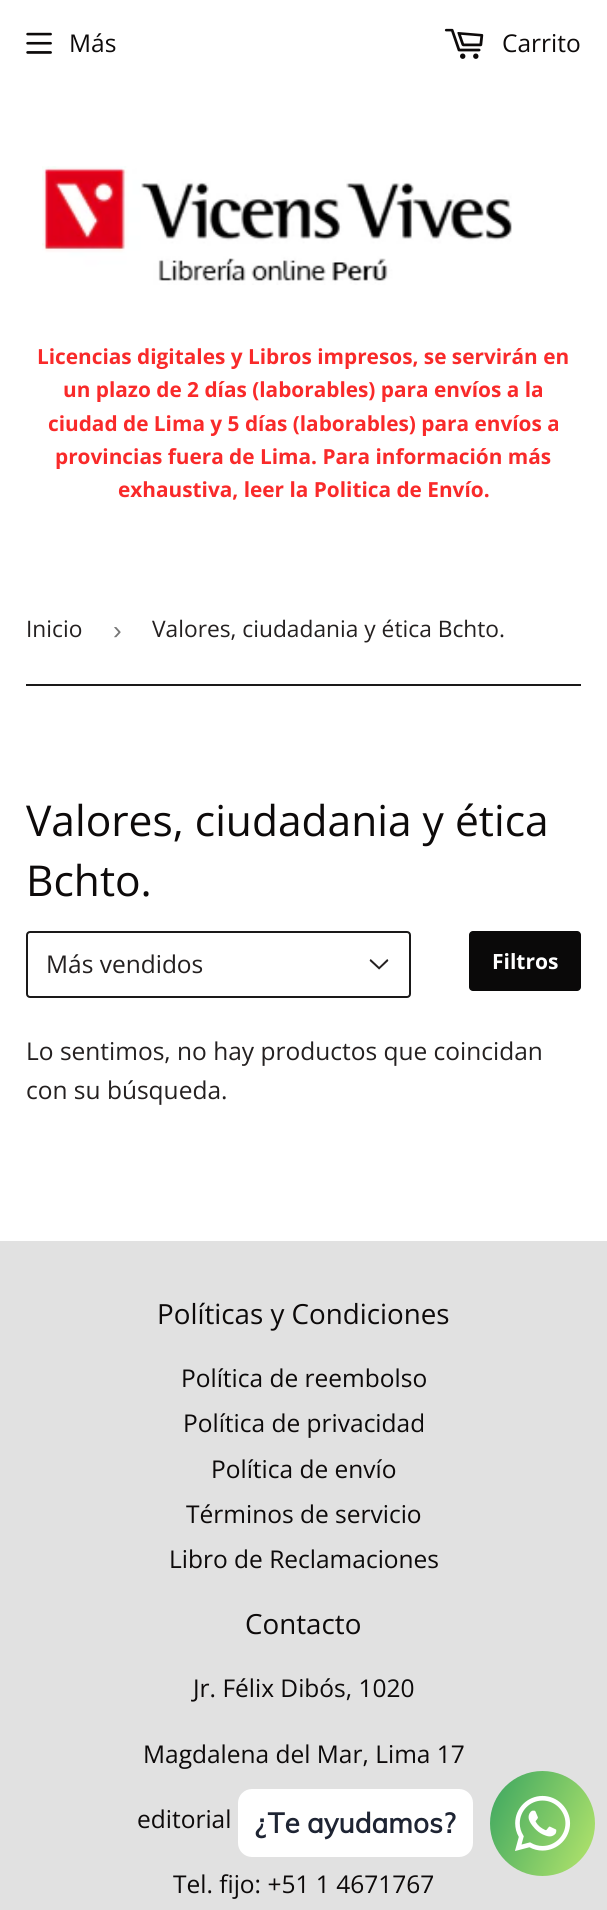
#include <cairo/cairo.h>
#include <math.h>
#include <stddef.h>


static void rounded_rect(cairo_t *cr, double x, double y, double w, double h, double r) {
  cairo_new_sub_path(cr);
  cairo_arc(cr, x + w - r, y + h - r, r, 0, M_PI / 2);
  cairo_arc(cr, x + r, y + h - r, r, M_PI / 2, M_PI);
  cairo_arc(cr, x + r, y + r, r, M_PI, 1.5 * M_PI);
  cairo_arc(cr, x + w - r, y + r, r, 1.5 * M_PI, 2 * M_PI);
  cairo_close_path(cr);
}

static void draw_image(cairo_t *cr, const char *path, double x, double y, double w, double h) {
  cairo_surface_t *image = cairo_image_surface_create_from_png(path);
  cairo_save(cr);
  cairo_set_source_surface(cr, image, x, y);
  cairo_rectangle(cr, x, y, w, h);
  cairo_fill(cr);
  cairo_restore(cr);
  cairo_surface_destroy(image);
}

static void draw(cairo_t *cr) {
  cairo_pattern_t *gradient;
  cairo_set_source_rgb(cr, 1, 1, 1);
  cairo_paint(cr);
  draw_image(cr, "images/1.png", 26, 32, 26, 22);
  draw_image(cr, "images/2.png", 444, 28, 40, 31);
  draw_image(cr, "images/3.png", 42, 166, 470, 119);
  cairo_set_source_rgb(cr, 26 / 255.0, 25 / 255.0, 25 / 255.0);
  cairo_rectangle(cr, 26, 684, 555, 2);
  cairo_fill(cr);
  draw_image(cr, "images/4.png", 369, 959, 20, 11);
  rounded_rect(cr, 27, 932, 383, 65, 3);
  cairo_stroke(cr);
  cairo_set_source_rgb(cr, 10 / 255.0, 9 / 255.0, 9 / 255.0);
  rounded_rect(cr, 469, 931, 112, 60, 4);
  cairo_fill(cr);
  cairo_set_source_rgb(cr, 225 / 255.0, 225 / 255.0, 225 / 255.0);
  cairo_rectangle(cr, 0, 1241, 607, 669);
  cairo_fill(cr);
  gradient = cairo_pattern_create_linear(479, 1794, 606, 1853);
  cairo_pattern_add_color_stop_rgba(gradient, 0, 58 / 255.0, 165 / 255.0, 96 / 255.0, 1);
  cairo_pattern_add_color_stop_rgba(gradient, 1, 183 / 255.0, 230 / 255.0, 108 / 255.0, 1);
  cairo_set_source(cr, gradient);
  cairo_pattern_destroy(gradient);
  cairo_arc(cr, 542.5, 1823.5, 52.5, 0, 2 * M_PI);
  cairo_fill(cr);
  cairo_set_source_rgb(cr, 1, 1, 1);
  rounded_rect(cr, 238, 1789, 235, 68, 14);
  cairo_fill(cr);
  draw_image(cr, "images/5.png", 515, 1795, 56, 56);
  cairo_select_font_face(cr, "Open Sans", CAIRO_FONT_SLANT_NORMAL, CAIRO_FONT_WEIGHT_NORMAL);
  cairo_set_font_size(cr, 24.5);
  cairo_set_source_rgb(cr, 13 / 255.0, 10 / 255.0, 10 / 255.0);
  cairo_move_to(cr, 69, 52);
  cairo_show_text(cr, "Más");
  cairo_move_to(cr, 502, 52);
  cairo_show_text(cr, "Carrito");
  cairo_select_font_face(cr, "Open Sans", CAIRO_FONT_SLANT_NORMAL, CAIRO_FONT_WEIGHT_BOLD);
  cairo_set_font_size(cr, 20.8);
  cairo_set_source_rgb(cr, 249 / 255.0, 42 / 255.0, 42 / 255.0);
  cairo_move_to(cr, 37, 364);
  cairo_show_text(cr, "Licencias digitales y Libros impresos, se servirán en");
  cairo_move_to(cr, 63, 397);
  cairo_show_text(cr, "un plazo de 2 días (laborables) para envíos a la");
  cairo_move_to(cr, 48, 431);
  cairo_show_text(cr, "ciudad de Lima y 5 días (laborables) para envíos a");
  cairo_move_to(cr, 55, 464);
  cairo_show_text(cr, "provincias fuera de Lima. Para información más");
  cairo_move_to(cr, 118, 497);
  cairo_show_text(cr, "exhaustiva, leer la Politica de Envío.");
  cairo_select_font_face(cr, "Open Sans", CAIRO_FONT_SLANT_NORMAL, CAIRO_FONT_WEIGHT_NORMAL);
  cairo_set_font_size(cr, 22.75);
  cairo_set_source_rgb(cr, 36 / 255.0, 32 / 255.0, 32 / 255.0);
  cairo_move_to(cr, 26, 637);
  cairo_show_text(cr, "Inicio");
  cairo_select_font_face(cr, "Liberation Sans", CAIRO_FONT_SLANT_NORMAL, CAIRO_FONT_WEIGHT_NORMAL);
  cairo_set_font_size(cr, 26);
  cairo_set_source_rgb(cr, 118 / 255.0, 118 / 255.0, 118 / 255.0);
  cairo_move_to(cr, 113, 639);
  cairo_show_text(cr, "›");
  cairo_select_font_face(cr, "Open Sans", CAIRO_FONT_SLANT_NORMAL, CAIRO_FONT_WEIGHT_NORMAL);
  cairo_set_font_size(cr, 22.75);
  cairo_set_source_rgb(cr, 36 / 255.0, 32 / 255.0, 32 / 255.0);
  cairo_move_to(cr, 152, 637);
  cairo_show_text(cr, "Valores, ciudadania y ética Bchto.");
  cairo_set_font_size(cr, 42.5);
  cairo_set_source_rgb(cr, 13 / 255.0, 10 / 255.0, 10 / 255.0);
  cairo_move_to(cr, 26, 836);
  cairo_show_text(cr, "Valores, ciudadania y ética");
  cairo_move_to(cr, 26, 896);
  cairo_show_text(cr, "Bchto.");
  cairo_set_font_size(cr, 24.5);
  cairo_set_source_rgb(cr, 36 / 255.0, 32 / 255.0, 32 / 255.0);
  cairo_move_to(cr, 46, 973);
  cairo_show_text(cr, "Más vendidos");
  cairo_select_font_face(cr, "Open Sans", CAIRO_FONT_SLANT_NORMAL, CAIRO_FONT_WEIGHT_BOLD);
  cairo_set_font_size(cr, 21);
  cairo_set_source_rgb(cr, 1, 1, 1);
  cairo_move_to(cr, 492, 969);
  cairo_show_text(cr, "Filtros");
  cairo_select_font_face(cr, "Open Sans", CAIRO_FONT_SLANT_NORMAL, CAIRO_FONT_WEIGHT_NORMAL);
  cairo_set_font_size(cr, 24.5);
  cairo_set_source_rgb(cr, 36 / 255.0, 32 / 255.0, 32 / 255.0);
  cairo_move_to(cr, 26, 1060);
  cairo_show_text(cr, "Lo sentimos, no hay productos que coincidan");
  cairo_move_to(cr, 26, 1099);
  cairo_show_text(cr, "con su búsqueda.");
  cairo_set_font_size(cr, 27.75);
  cairo_set_source_rgb(cr, 13 / 255.0, 10 / 255.0, 10 / 255.0);
  cairo_move_to(cr, 157, 1324);
  cairo_show_text(cr, "Políticas y Condiciones");
  cairo_set_font_size(cr, 24.5);
  cairo_move_to(cr, 181, 1387);
  cairo_show_text(cr, "Política de reembolso");
  cairo_move_to(cr, 183, 1432);
  cairo_show_text(cr, "Política de privacidad");
  cairo_move_to(cr, 211, 1478);
  cairo_show_text(cr, "Política de envío");
  cairo_move_to(cr, 186, 1523);
  cairo_show_text(cr, "Términos de servicio");
  cairo_move_to(cr, 169, 1568);
  cairo_show_text(cr, "Libro de Reclamaciones");
  cairo_set_font_size(cr, 27.75);
  cairo_move_to(cr, 245, 1634);
  cairo_show_text(cr, "Contacto");
  cairo_set_font_size(cr, 24.5);
  cairo_move_to(cr, 193, 1697);
  cairo_show_text(cr, "Jr. Félix Dibós, 1020");
  cairo_move_to(cr, 143, 1763);
  cairo_show_text(cr, "Magdalena del Mar, Lima 17");
  cairo_move_to(cr, 137, 1828);
  cairo_show_text(cr, "editorial");
  cairo_move_to(cr, 173, 1893);
  cairo_show_text(cr, "Tel. fijo: +51 1 4671767");
  cairo_select_font_face(cr, "Muli", CAIRO_FONT_SLANT_NORMAL, CAIRO_FONT_WEIGHT_BOLD);
  cairo_set_font_size(cr, 28);
  cairo_set_source_rgb(cr, 30 / 255.0, 36 / 255.0, 51 / 255.0);
  cairo_move_to(cr, 255, 1833);
  cairo_show_text(cr, "¿Te ayudamos?");
}

int main(void) {
  cairo_surface_t *surface = cairo_image_surface_create(CAIRO_FORMAT_RGB24, 607, 1910);
  cairo_t *cr = cairo_create(surface);
  cairo_font_options_t *options = cairo_font_options_create();
  cairo_font_options_set_hint_metrics(options, CAIRO_HINT_METRICS_OFF);
  cairo_font_options_set_hint_style(options, CAIRO_HINT_STYLE_NONE);
  cairo_set_font_options(cr, options);
  cairo_set_miter_limit(cr, 4);
  draw(cr);
  cairo_surface_write_to_png(surface, "out.png");
  cairo_font_options_destroy(options);
  cairo_destroy(cr);
  cairo_surface_destroy(surface);
  return 0;
}
